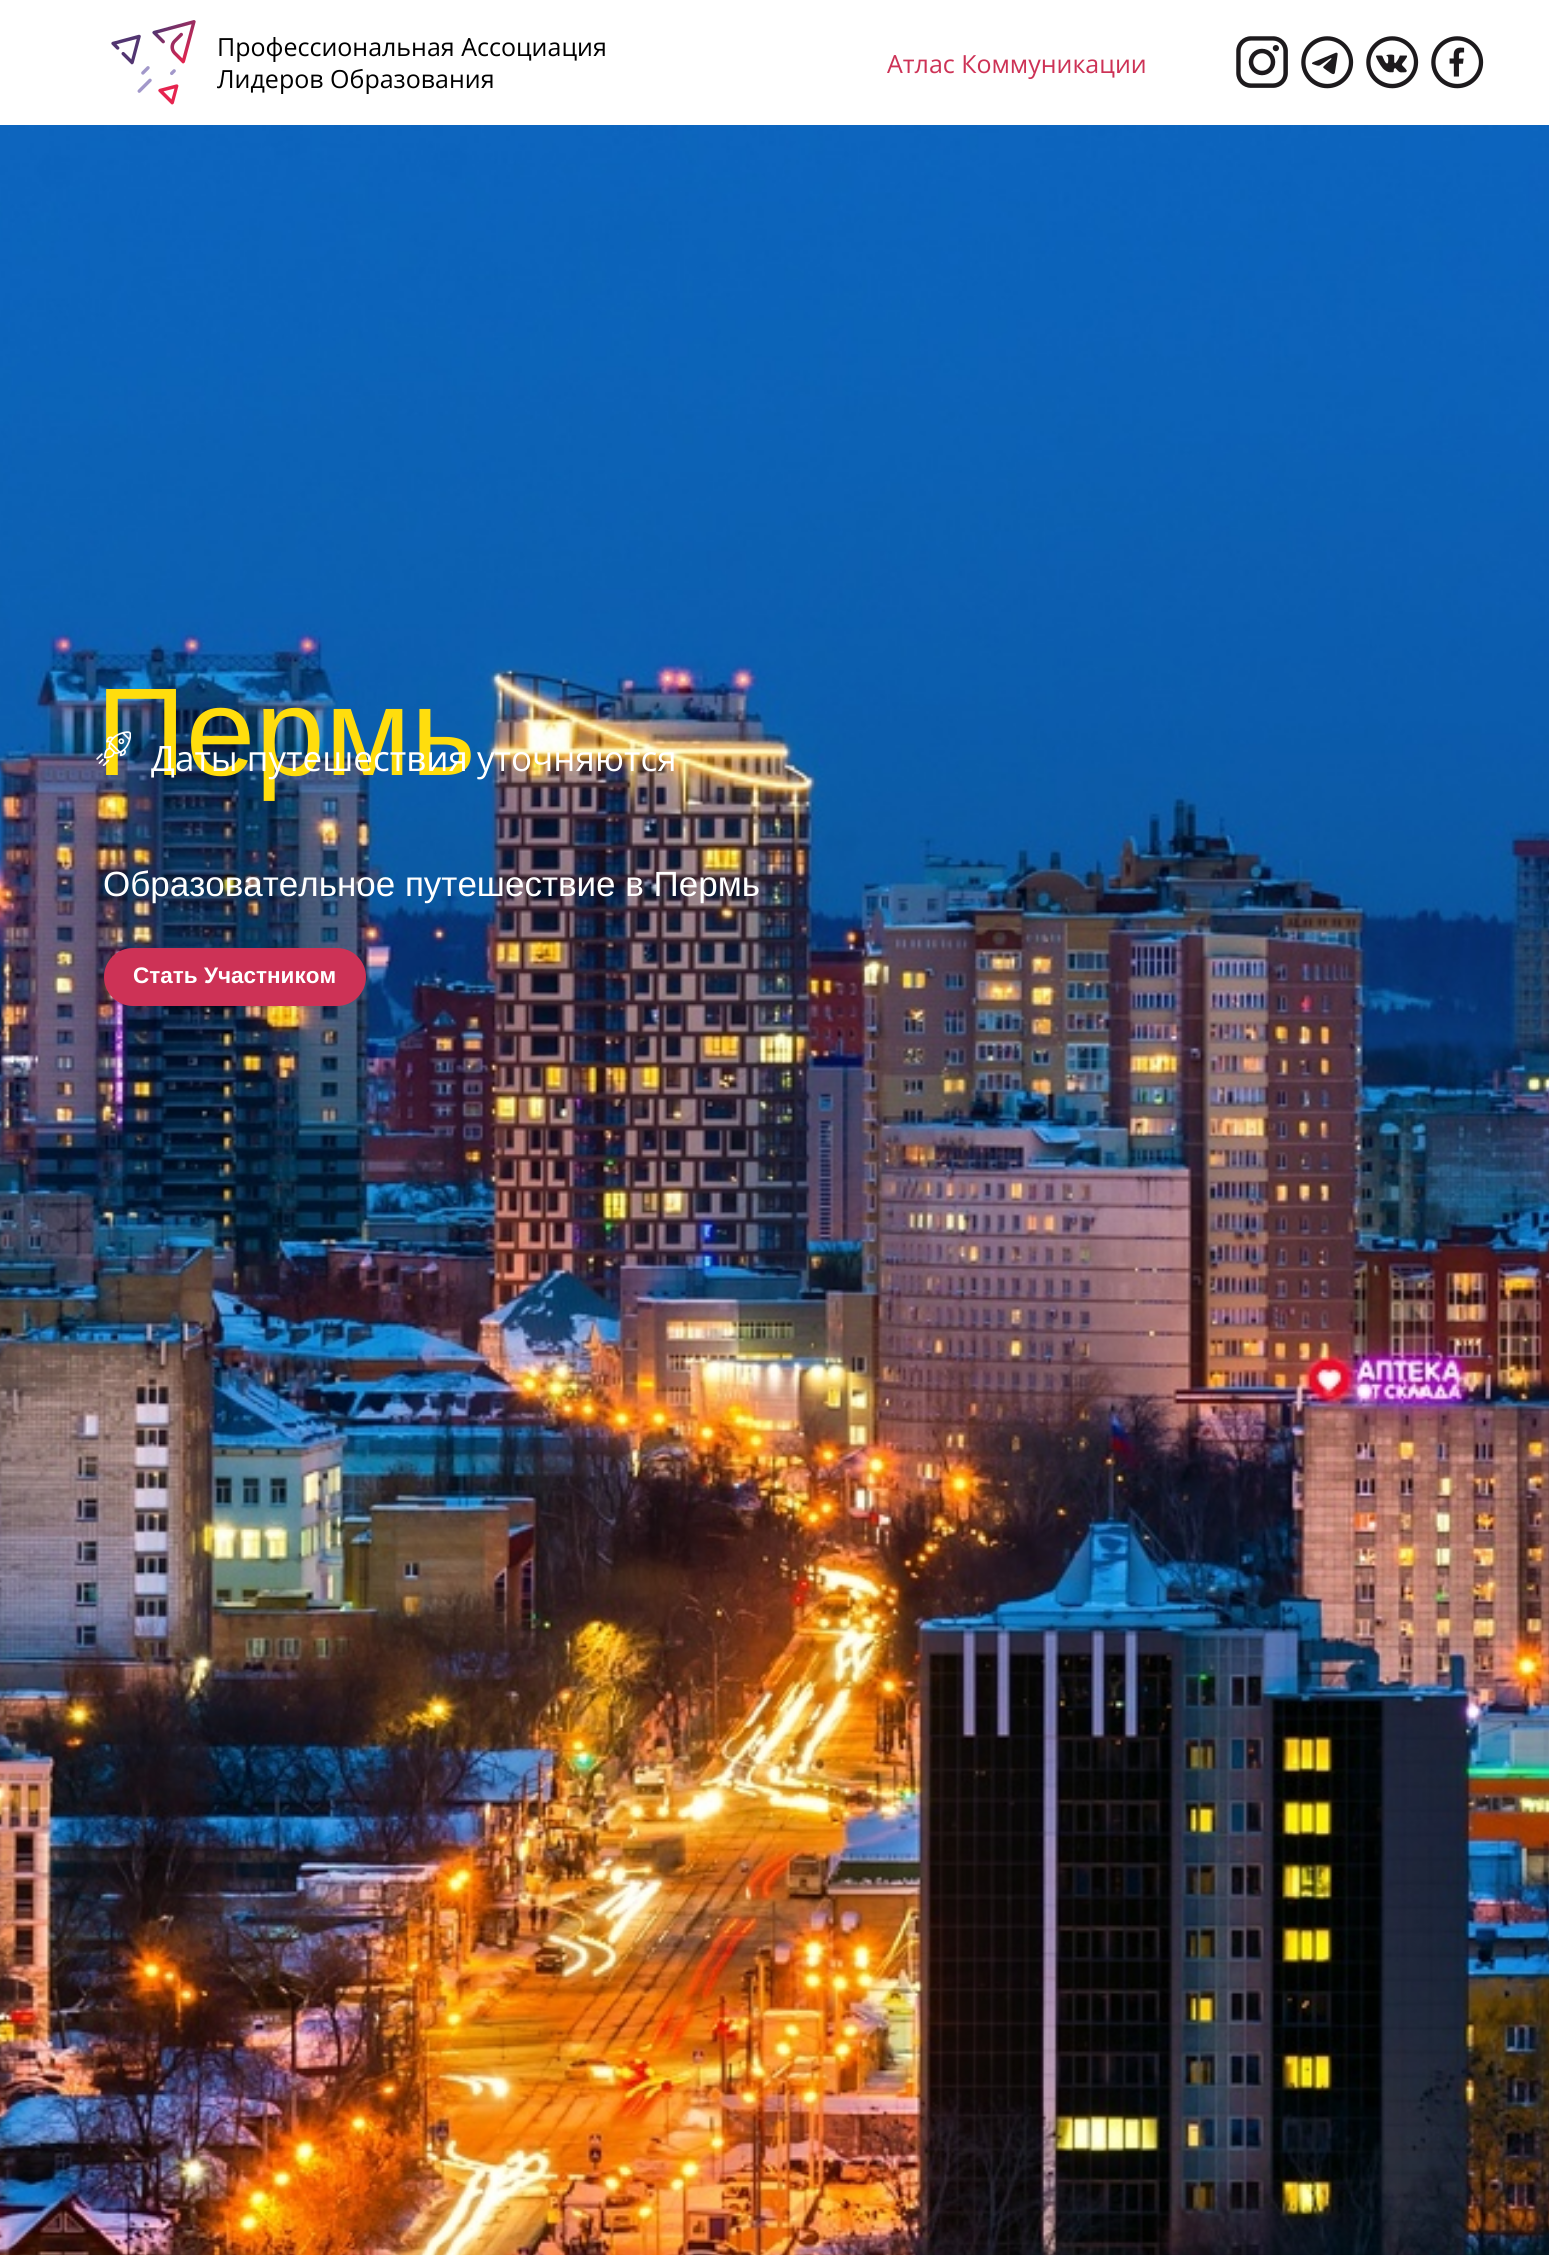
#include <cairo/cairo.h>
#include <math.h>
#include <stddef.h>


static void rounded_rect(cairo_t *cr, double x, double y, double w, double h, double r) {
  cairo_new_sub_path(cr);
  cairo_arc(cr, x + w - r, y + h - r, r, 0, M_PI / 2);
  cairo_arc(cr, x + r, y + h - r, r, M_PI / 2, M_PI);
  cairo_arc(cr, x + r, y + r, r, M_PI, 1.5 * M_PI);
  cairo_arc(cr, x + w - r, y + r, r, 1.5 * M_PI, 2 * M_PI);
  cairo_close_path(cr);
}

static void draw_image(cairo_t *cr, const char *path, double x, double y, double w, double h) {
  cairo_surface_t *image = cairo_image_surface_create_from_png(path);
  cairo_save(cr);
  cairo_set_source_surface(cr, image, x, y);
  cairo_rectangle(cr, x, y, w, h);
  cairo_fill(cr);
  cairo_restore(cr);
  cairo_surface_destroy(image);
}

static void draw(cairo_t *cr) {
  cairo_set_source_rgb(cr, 1, 1, 1);
  cairo_paint(cr);
  draw_image(cr, "images/1.png", 111, 20, 85, 85);
  draw_image(cr, "images/2.png", 1236, 36, 52, 52);
  draw_image(cr, "images/3.png", 1301, 36, 53, 53);
  draw_image(cr, "images/4.png", 1366, 36, 53, 53);
  draw_image(cr, "images/5.png", 1431, 36, 53, 53);
  draw_image(cr, "images/6.png", 0, 125, 1549, 2130);
  cairo_set_source_rgb(cr, 205 / 255.0, 50 / 255.0, 86 / 255.0);
  rounded_rect(cr, 104, 948, 262, 58, 29);
  cairo_fill(cr);
  cairo_select_font_face(cr, "Open Sans", CAIRO_FONT_SLANT_NORMAL, CAIRO_FONT_WEIGHT_NORMAL);
  cairo_set_font_size(cr, 25);
  cairo_set_source_rgb(cr, 0, 0, 0);
  cairo_move_to(cr, 217, 56);
  cairo_show_text(cr, "Профессиональная Ассоциация");
  cairo_move_to(cr, 217, 88);
  cairo_show_text(cr, "Лидеров Образования");
  cairo_set_source_rgb(cr, 205 / 255.0, 50 / 255.0, 86 / 255.0);
  cairo_move_to(cr, 887, 73);
  cairo_show_text(cr, "Атлас Коммуникации");
  cairo_select_font_face(cr, "Liberation Sans", CAIRO_FONT_SLANT_NORMAL, CAIRO_FONT_WEIGHT_NORMAL);
  cairo_set_font_size(cr, 125);
  cairo_set_source_rgb(cr, 1, 221 / 255.0, 13 / 255.0);
  cairo_move_to(cr, 96, 775);
  cairo_show_text(cr, "Пермь");
  draw_image(cr, "images/7.png", 96, 731, 35, 35);
  cairo_select_font_face(cr, "Open Sans", CAIRO_FONT_SLANT_NORMAL, CAIRO_FONT_WEIGHT_NORMAL);
  cairo_set_font_size(cr, 35);
  cairo_set_source_rgb(cr, 1, 1, 1);
  cairo_move_to(cr, 151, 771);
  cairo_show_text(cr, "Даты путешествия уточняются");
  cairo_select_font_face(cr, "Liberation Sans", CAIRO_FONT_SLANT_NORMAL, CAIRO_FONT_WEIGHT_NORMAL);
  cairo_move_to(cr, 103, 896);
  cairo_show_text(cr, "Образовательное путешествие в Пермь");
  cairo_select_font_face(cr, "Liberation Sans", CAIRO_FONT_SLANT_NORMAL, CAIRO_FONT_WEIGHT_BOLD);
  cairo_set_font_size(cr, 22.5);
  cairo_move_to(cr, 133, 983);
  cairo_show_text(cr, "Стать Участником");
}

int main(void) {
  cairo_surface_t *surface = cairo_image_surface_create(CAIRO_FORMAT_RGB24, 1549, 2255);
  cairo_t *cr = cairo_create(surface);
  cairo_font_options_t *options = cairo_font_options_create();
  cairo_font_options_set_hint_metrics(options, CAIRO_HINT_METRICS_OFF);
  cairo_font_options_set_hint_style(options, CAIRO_HINT_STYLE_NONE);
  cairo_set_font_options(cr, options);
  cairo_set_miter_limit(cr, 4);
  draw(cr);
  cairo_surface_write_to_png(surface, "out.png");
  cairo_font_options_destroy(options);
  cairo_destroy(cr);
  cairo_surface_destroy(surface);
  return 0;
}
